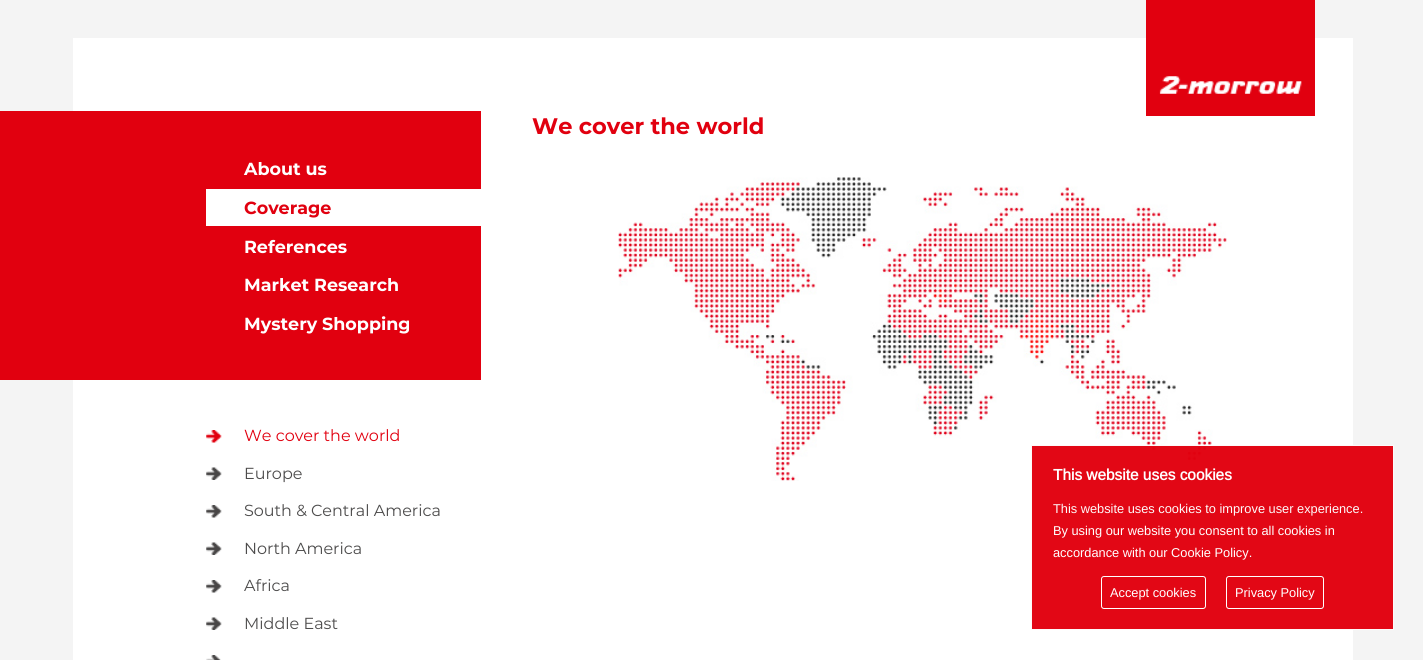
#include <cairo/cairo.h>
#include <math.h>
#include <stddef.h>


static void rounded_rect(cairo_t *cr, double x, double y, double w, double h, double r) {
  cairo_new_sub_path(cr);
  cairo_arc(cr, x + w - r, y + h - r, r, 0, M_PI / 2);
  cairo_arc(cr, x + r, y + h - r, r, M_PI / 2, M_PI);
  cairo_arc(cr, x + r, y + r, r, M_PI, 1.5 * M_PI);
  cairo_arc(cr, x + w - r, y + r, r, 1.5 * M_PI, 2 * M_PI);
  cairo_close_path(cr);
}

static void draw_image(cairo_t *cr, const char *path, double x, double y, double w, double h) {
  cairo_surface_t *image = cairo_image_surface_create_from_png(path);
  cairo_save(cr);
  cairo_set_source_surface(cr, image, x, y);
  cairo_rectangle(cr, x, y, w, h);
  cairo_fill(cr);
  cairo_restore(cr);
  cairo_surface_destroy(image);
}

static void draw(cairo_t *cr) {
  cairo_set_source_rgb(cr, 244 / 255.0, 244 / 255.0, 244 / 255.0);
  cairo_paint(cr);
  cairo_set_source_rgb(cr, 1, 1, 1);
  cairo_rectangle(cr, 73, 38, 1280, 622);
  cairo_fill(cr);
  cairo_set_source_rgb(cr, 225 / 255.0, 0, 15 / 255.0);
  cairo_rectangle(cr, 1146, 0, 169, 116);
  cairo_fill(cr);
  draw_image(cr, "images/1.png", 1159, 76, 143, 18);
  draw_image(cr, "images/2.png", 618, 177, 609, 304);
  cairo_rectangle(cr, 0, 111, 481, 269);
  cairo_fill(cr);
  cairo_set_source_rgb(cr, 1, 1, 1);
  cairo_rectangle(cr, 206, 189, 275, 37);
  cairo_fill(cr);
  draw_image(cr, "images/3.png", 206, 430, 16, 13);
  draw_image(cr, "images/4.png", 206, 467, 16, 13);
  draw_image(cr, "images/5.png", 206, 505, 16, 13);
  draw_image(cr, "images/4.png", 206, 542, 16, 13);
  draw_image(cr, "images/5.png", 206, 580, 16, 13);
  draw_image(cr, "images/4.png", 206, 617, 16, 13);
  draw_image(cr, "images/6.png", 206, 655, 15, 5);
  cairo_set_source_rgba(cr, 225 / 255.0, 0, 15 / 255.0, 0.97);
  cairo_rectangle(cr, 1031.5, 445.5, 362, 184);
  cairo_fill_preserve(cr);
  cairo_set_source_rgb(cr, 254 / 255.0, 249 / 255.0, 249 / 255.0);
  cairo_set_line_width(cr, 1);
  cairo_stroke(cr);
  rounded_rect(cr, 1101.5, 576.5, 104, 32, 2.5);
  cairo_set_source_rgb(cr, 1, 1, 1);
  cairo_stroke(cr);
  rounded_rect(cr, 1226.5, 576.5, 97, 32, 2.5);
  cairo_stroke(cr);
  cairo_select_font_face(cr, "Montserrat", CAIRO_FONT_SLANT_NORMAL, CAIRO_FONT_WEIGHT_BOLD);
  cairo_set_font_size(cr, 22.5);
  cairo_set_source_rgb(cr, 225 / 255.0, 0, 15 / 255.0);
  cairo_move_to(cr, 532, 134);
  cairo_show_text(cr, "We cover the world");
  cairo_set_font_size(cr, 17.5);
  cairo_set_source_rgb(cr, 1, 1, 1);
  cairo_move_to(cr, 244, 175);
  cairo_show_text(cr, "About us");
  cairo_set_source_rgb(cr, 225 / 255.0, 0, 15 / 255.0);
  cairo_move_to(cr, 244, 214);
  cairo_show_text(cr, "Coverage");
  cairo_set_source_rgb(cr, 1, 1, 1);
  cairo_move_to(cr, 244, 253);
  cairo_show_text(cr, "References");
  cairo_move_to(cr, 244, 291);
  cairo_show_text(cr, "Market Research");
  cairo_move_to(cr, 244, 330);
  cairo_show_text(cr, "Mystery Shopping");
  cairo_select_font_face(cr, "Montserrat", CAIRO_FONT_SLANT_NORMAL, CAIRO_FONT_WEIGHT_NORMAL);
  cairo_set_font_size(cr, 16);
  cairo_set_source_rgb(cr, 225 / 255.0, 0, 15 / 255.0);
  cairo_move_to(cr, 244, 441);
  cairo_show_text(cr, "We cover the world");
  cairo_set_source_rgb(cr, 77 / 255.0, 76 / 255.0, 76 / 255.0);
  cairo_move_to(cr, 244, 479);
  cairo_show_text(cr, "Europe");
  cairo_move_to(cr, 244, 516);
  cairo_show_text(cr, "South & Central America");
  cairo_move_to(cr, 244, 554);
  cairo_show_text(cr, "North America");
  cairo_move_to(cr, 244, 591);
  cairo_show_text(cr, "Africa");
  cairo_move_to(cr, 244, 629);
  cairo_show_text(cr, "Middle East");
  cairo_select_font_face(cr, "Arimo", CAIRO_FONT_SLANT_NORMAL, CAIRO_FONT_WEIGHT_BOLD);
  cairo_set_font_size(cr, 15.4);
  cairo_set_source_rgb(cr, 1, 1, 1);
  cairo_move_to(cr, 1053, 480);
  cairo_show_text(cr, "This website uses cookies");
  cairo_select_font_face(cr, "Arimo", CAIRO_FONT_SLANT_NORMAL, CAIRO_FONT_WEIGHT_NORMAL);
  cairo_set_font_size(cr, 12.8);
  cairo_set_source_rgb(cr, 254 / 255.0, 249 / 255.0, 249 / 255.0);
  cairo_move_to(cr, 1053, 513);
  cairo_show_text(cr, "This website uses cookies to improve user experience.");
  cairo_set_source_rgb(cr, 1, 1, 1);
  cairo_move_to(cr, 1053, 535);
  cairo_show_text(cr, "By using our website you consent to all cookies in");
  cairo_move_to(cr, 1053, 557);
  cairo_show_text(cr, "accordance with our Cookie Policy.");
  cairo_move_to(cr, 1110, 597);
  cairo_show_text(cr, "Accept cookies");
  cairo_move_to(cr, 1235, 597);
  cairo_show_text(cr, "Privacy Policy");
}

int main(void) {
  cairo_surface_t *surface = cairo_image_surface_create(CAIRO_FORMAT_RGB24, 1423, 660);
  cairo_t *cr = cairo_create(surface);
  cairo_font_options_t *options = cairo_font_options_create();
  cairo_font_options_set_hint_metrics(options, CAIRO_HINT_METRICS_OFF);
  cairo_font_options_set_hint_style(options, CAIRO_HINT_STYLE_NONE);
  cairo_set_font_options(cr, options);
  cairo_set_miter_limit(cr, 4);
  draw(cr);
  cairo_surface_write_to_png(surface, "out.png");
  cairo_font_options_destroy(options);
  cairo_destroy(cr);
  cairo_surface_destroy(surface);
  return 0;
}
